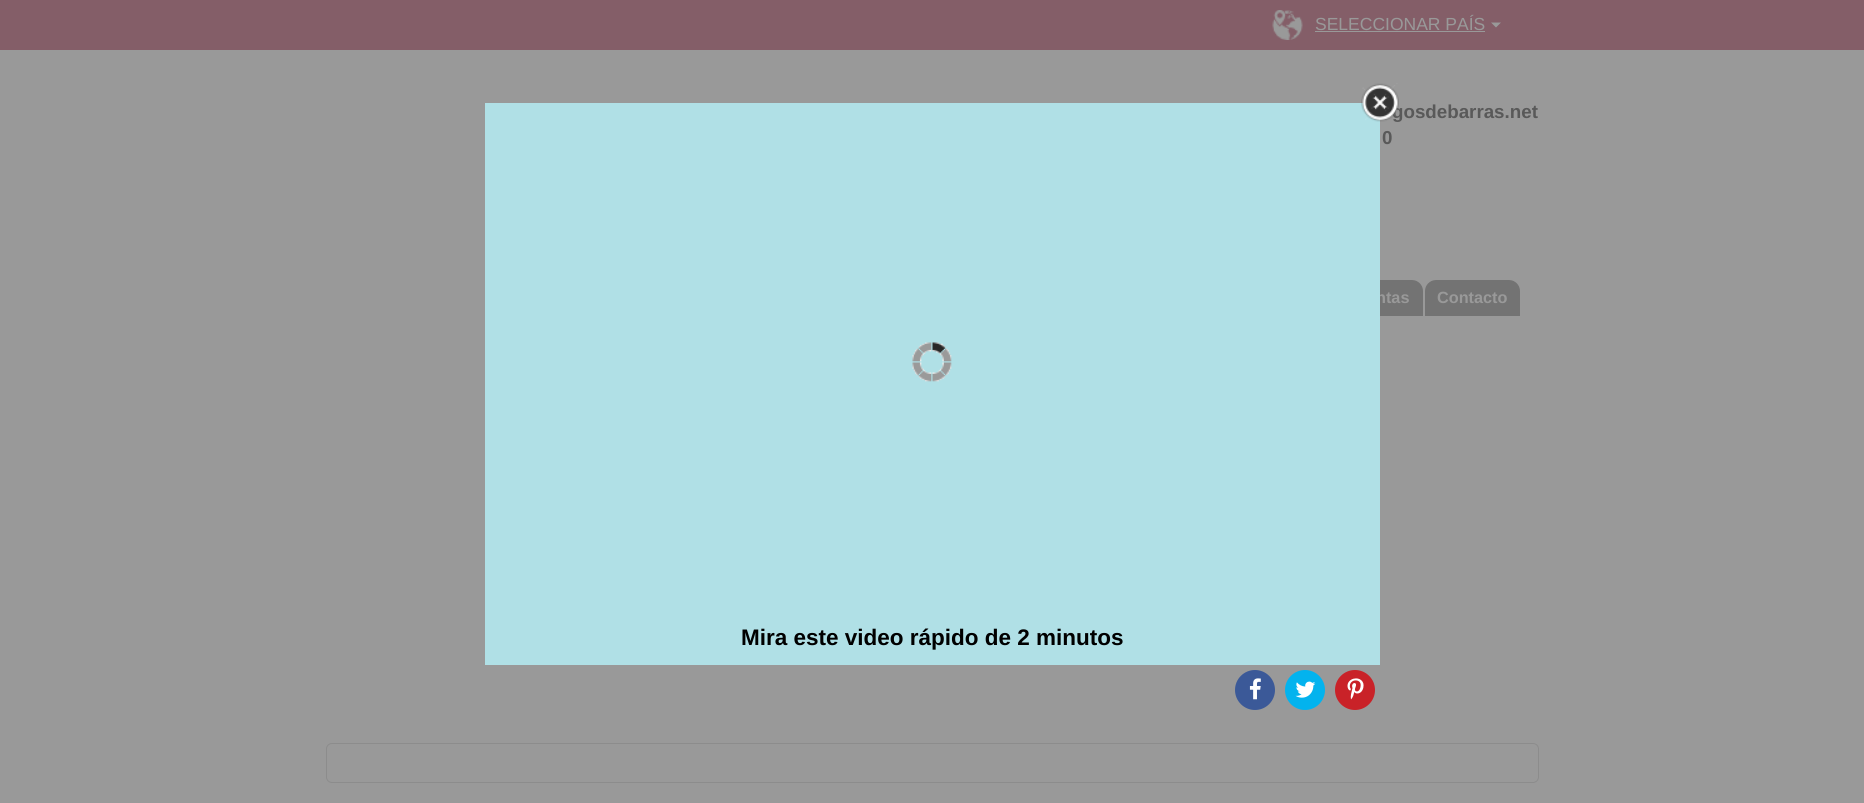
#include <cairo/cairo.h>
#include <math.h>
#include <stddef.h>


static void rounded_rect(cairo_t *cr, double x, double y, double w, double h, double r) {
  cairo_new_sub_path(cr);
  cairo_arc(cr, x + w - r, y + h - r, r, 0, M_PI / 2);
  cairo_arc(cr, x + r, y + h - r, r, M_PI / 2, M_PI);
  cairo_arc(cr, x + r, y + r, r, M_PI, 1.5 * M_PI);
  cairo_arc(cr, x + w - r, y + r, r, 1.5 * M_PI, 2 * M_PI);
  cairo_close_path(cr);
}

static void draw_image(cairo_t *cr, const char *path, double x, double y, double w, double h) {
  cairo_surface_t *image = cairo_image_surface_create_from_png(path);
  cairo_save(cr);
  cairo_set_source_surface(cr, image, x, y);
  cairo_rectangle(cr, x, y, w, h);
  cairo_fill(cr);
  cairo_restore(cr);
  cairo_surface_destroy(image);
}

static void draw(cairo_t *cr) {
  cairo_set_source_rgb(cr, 153 / 255.0, 153 / 255.0, 153 / 255.0);
  cairo_paint(cr);
  cairo_set_source_rgb(cr, 132 / 255.0, 94 / 255.0, 104 / 255.0);
  cairo_rectangle(cr, 0, 0, 1864, 50);
  cairo_fill(cr);
  draw_image(cr, "images/1.png", 1272, 10, 31, 30);
  cairo_set_source_rgb(cr, 153 / 255.0, 153 / 255.0, 153 / 255.0);
  cairo_rectangle(cr, 1315, 31, 170, 1);
  cairo_fill(cr);
  cairo_new_path(cr);
  cairo_move_to(cr, 1491, 22.5);
  cairo_line_to(cr, 1501, 22.5);
  cairo_line_to(cr, 1496, 27.5);
  cairo_close_path(cr);
  cairo_fill(cr);
  cairo_set_source_rgb(cr, 115 / 255.0, 115 / 255.0, 115 / 255.0);
  cairo_new_path(cr);
  cairo_move_to(cr, 1329, 280);
  cairo_line_to(cr, 1412, 280);
  cairo_curve_to(cr, 1418, 280, 1423, 285, 1423, 291);
  cairo_line_to(cr, 1423, 316);
  cairo_line_to(cr, 1318, 316);
  cairo_line_to(cr, 1318, 291);
  cairo_curve_to(cr, 1318, 285, 1323, 280, 1329, 280);
  cairo_close_path(cr);
  cairo_fill(cr);
  cairo_new_path(cr);
  cairo_move_to(cr, 1436, 280);
  cairo_line_to(cr, 1509, 280);
  cairo_curve_to(cr, 1515, 280, 1520, 285, 1520, 291);
  cairo_line_to(cr, 1520, 316);
  cairo_line_to(cr, 1425, 316);
  cairo_line_to(cr, 1425, 291);
  cairo_curve_to(cr, 1425, 285, 1430, 280, 1436, 280);
  cairo_close_path(cr);
  cairo_fill(cr);
  cairo_set_source_rgb(cr, 59 / 255.0, 89 / 255.0, 152 / 255.0);
  cairo_arc(cr, 1255, 690, 20, 0, 2 * M_PI);
  cairo_fill(cr);
  draw_image(cr, "images/4.png", 1249, 678, 12, 22);
  cairo_set_source_rgb(cr, 3 / 255.0, 179 / 255.0, 238 / 255.0);
  cairo_arc(cr, 1305, 690, 20, 0, 2 * M_PI);
  cairo_fill(cr);
  draw_image(cr, "images/5.png", 1295, 681, 21, 17);
  cairo_set_source_rgb(cr, 201 / 255.0, 34 / 255.0, 40 / 255.0);
  cairo_arc(cr, 1355, 690, 20, 0, 2 * M_PI);
  cairo_fill(cr);
  draw_image(cr, "images/6.png", 1347, 678, 17, 22);
  rounded_rect(cr, 326.5, 743.5, 1212, 39, 5.5);
  cairo_set_source_rgb(cr, 140 / 255.0, 140 / 255.0, 140 / 255.0);
  cairo_set_line_width(cr, 1);
  cairo_stroke(cr);
  cairo_select_font_face(cr, "Liberation Sans", CAIRO_FONT_SLANT_NORMAL, CAIRO_FONT_WEIGHT_NORMAL);
  cairo_set_font_size(cr, 17.5);
  cairo_set_source_rgb(cr, 153 / 255.0, 153 / 255.0, 153 / 255.0);
  cairo_move_to(cr, 1315, 30);
  cairo_show_text(cr, "SELECCIONAR PAÍS");
  cairo_select_font_face(cr, "Liberation Sans", CAIRO_FONT_SLANT_NORMAL, CAIRO_FONT_WEIGHT_BOLD);
  cairo_set_font_size(cr, 18.75);
  cairo_set_source_rgb(cr, 89 / 255.0, 89 / 255.0, 89 / 255.0);
  cairo_move_to(cr, 1392, 118);
  cairo_show_text(cr, "gosdebarras.net");
  cairo_move_to(cr, 1382, 144);
  cairo_show_text(cr, "0");
  cairo_set_font_size(cr, 16.25);
  cairo_set_source_rgb(cr, 153 / 255.0, 153 / 255.0, 153 / 255.0);
  cairo_move_to(cr, 1376, 303);
  cairo_show_text(cr, "ntas");
  cairo_move_to(cr, 1437, 303);
  cairo_show_text(cr, "Contacto");
  cairo_set_source_rgb(cr, 176 / 255.0, 224 / 255.0, 230 / 255.0);
  cairo_rectangle(cr, 485, 103, 895, 562);
  cairo_fill(cr);
  draw_image(cr, "images/2.png", 1361, 83, 39, 39);
  draw_image(cr, "images/3.png", 912, 342, 40, 40);
  cairo_set_font_size(cr, 22.5);
  cairo_set_source_rgb(cr, 0, 0, 0);
  cairo_move_to(cr, 741, 645);
  cairo_show_text(cr, "Mira este video rápido de 2 minutos");
}

int main(void) {
  cairo_surface_t *surface = cairo_image_surface_create(CAIRO_FORMAT_RGB24, 1864, 803);
  cairo_t *cr = cairo_create(surface);
  cairo_font_options_t *options = cairo_font_options_create();
  cairo_font_options_set_hint_metrics(options, CAIRO_HINT_METRICS_OFF);
  cairo_font_options_set_hint_style(options, CAIRO_HINT_STYLE_NONE);
  cairo_set_font_options(cr, options);
  cairo_set_miter_limit(cr, 4);
  draw(cr);
  cairo_surface_write_to_png(surface, "out.png");
  cairo_font_options_destroy(options);
  cairo_destroy(cr);
  cairo_surface_destroy(surface);
  return 0;
}
